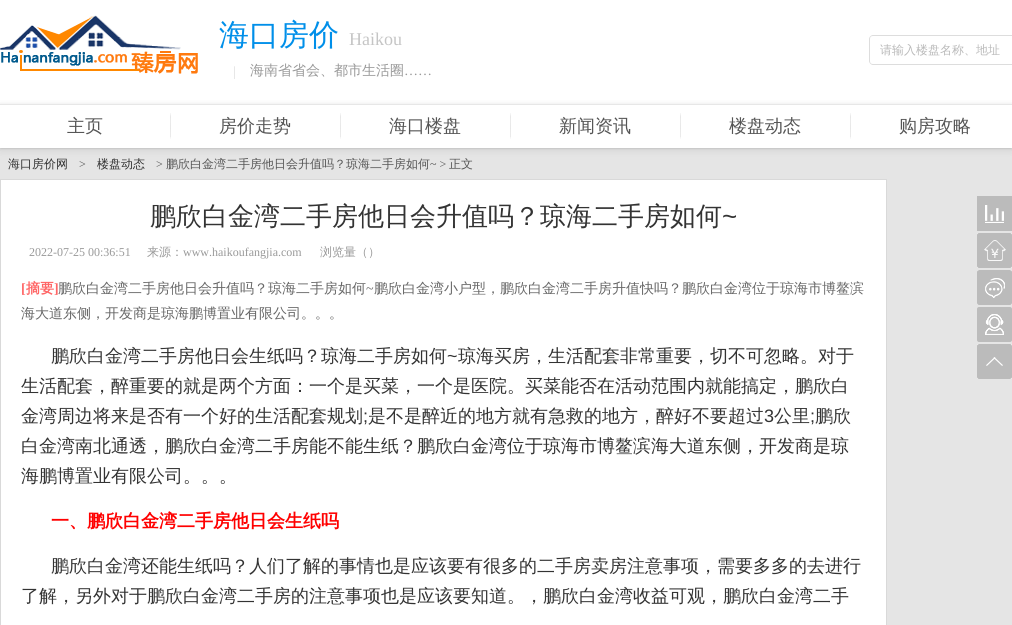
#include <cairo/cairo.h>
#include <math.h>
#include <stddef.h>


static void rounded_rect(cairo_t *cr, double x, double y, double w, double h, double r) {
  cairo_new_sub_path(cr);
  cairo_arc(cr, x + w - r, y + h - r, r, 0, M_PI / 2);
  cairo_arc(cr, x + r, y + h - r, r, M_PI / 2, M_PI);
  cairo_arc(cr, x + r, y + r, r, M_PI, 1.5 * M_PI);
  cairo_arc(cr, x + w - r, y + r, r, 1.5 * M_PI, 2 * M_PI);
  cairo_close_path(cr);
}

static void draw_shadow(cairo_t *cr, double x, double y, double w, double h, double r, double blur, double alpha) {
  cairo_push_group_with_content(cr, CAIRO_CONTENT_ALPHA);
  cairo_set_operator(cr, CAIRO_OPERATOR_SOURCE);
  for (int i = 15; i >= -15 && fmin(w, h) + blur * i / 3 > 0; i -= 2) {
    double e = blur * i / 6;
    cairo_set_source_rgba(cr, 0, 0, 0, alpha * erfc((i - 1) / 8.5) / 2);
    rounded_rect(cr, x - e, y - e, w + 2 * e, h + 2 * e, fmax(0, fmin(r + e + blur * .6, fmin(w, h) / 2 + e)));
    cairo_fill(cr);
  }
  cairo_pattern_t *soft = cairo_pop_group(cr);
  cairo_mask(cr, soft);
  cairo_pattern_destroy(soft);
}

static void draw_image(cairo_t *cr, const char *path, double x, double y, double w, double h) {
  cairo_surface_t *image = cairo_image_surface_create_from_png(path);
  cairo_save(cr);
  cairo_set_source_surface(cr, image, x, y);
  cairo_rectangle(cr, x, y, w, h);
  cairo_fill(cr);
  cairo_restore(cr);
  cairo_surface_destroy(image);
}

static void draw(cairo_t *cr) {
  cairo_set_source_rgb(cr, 229 / 255.0, 229 / 255.0, 229 / 255.0);
  cairo_paint(cr);
  cairo_set_source_rgb(cr, 241 / 255.0, 241 / 255.0, 241 / 255.0);
  draw_shadow(cr, 0, 3, 1012, 149, 0, 1, 1);
  cairo_set_source_rgb(cr, 1, 1, 1);
  cairo_rectangle(cr, 0, 0, 1012, 148);
  cairo_fill(cr);
  cairo_set_source_rgb(cr, 234 / 255.0, 234 / 255.0, 234 / 255.0);
  cairo_rectangle(cr, 0, 148, 1012, 1);
  cairo_fill(cr);
  draw_image(cr, "images/1.png", 0, 15, 198, 59);
  cairo_set_source_rgb(cr, 221 / 255.0, 221 / 255.0, 221 / 255.0);
  cairo_set_fill_rule(cr, CAIRO_FILL_RULE_EVEN_ODD);
  cairo_new_path(cr);
  cairo_move_to(cr, 873, 35);
  cairo_line_to(cr, 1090, 35);
  cairo_line_to(cr, 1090, 65);
  cairo_line_to(cr, 873, 65);
  cairo_curve_to(cr, 871, 65, 869, 63, 869, 61);
  cairo_line_to(cr, 869, 39);
  cairo_curve_to(cr, 869, 37, 871, 35, 873, 35);
  cairo_close_path(cr);
  cairo_move_to(cr, 873, 36);
  cairo_line_to(cr, 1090, 36);
  cairo_line_to(cr, 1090, 64);
  cairo_line_to(cr, 873, 64);
  cairo_curve_to(cr, 871, 64, 870, 63, 870, 61);
  cairo_line_to(cr, 870, 39);
  cairo_curve_to(cr, 870, 37, 871, 36, 873, 36);
  cairo_close_path(cr);
  cairo_fill(cr);
  cairo_save(cr);
  cairo_new_path(cr);
  cairo_move_to(cr, 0, 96);
  cairo_line_to(cr, 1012, 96);
  cairo_line_to(cr, 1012, 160);
  cairo_line_to(cr, 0, 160);
  cairo_close_path(cr);
  cairo_move_to(cr, 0, 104);
  cairo_line_to(cr, 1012, 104);
  cairo_line_to(cr, 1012, 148);
  cairo_line_to(cr, 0, 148);
  cairo_close_path(cr);
  cairo_clip(cr);
  cairo_set_source_rgb(cr, 0, 0, 0);
  draw_shadow(cr, 0, 106, 1012, 44, 0, 3, 0.2);
  cairo_restore(cr);
  cairo_set_source_rgb(cr, 231 / 255.0, 231 / 255.0, 231 / 255.0);
  cairo_rectangle(cr, 0, 104, 1012, 1);
  cairo_fill(cr);
  draw_image(cr, "images/2.png", 170, 113, 1, 26);
  draw_image(cr, "images/2.png", 340, 113, 1, 26);
  draw_image(cr, "images/2.png", 510, 113, 1, 26);
  draw_image(cr, "images/2.png", 680, 113, 1, 26);
  draw_image(cr, "images/2.png", 850, 113, 1, 26);
  cairo_set_source_rgb(cr, 1, 1, 1);
  cairo_rectangle(cr, 0.5, 179.5, 886, 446);
  cairo_fill_preserve(cr);
  cairo_set_source_rgb(cr, 217 / 255.0, 217 / 255.0, 217 / 255.0);
  cairo_set_line_width(cr, 1);
  cairo_stroke(cr);
  cairo_set_source_rgb(cr, 187 / 255.0, 187 / 255.0, 187 / 255.0);
  cairo_rectangle(cr, 977, 196, 35, 35);
  cairo_fill(cr);
  draw_image(cr, "images/3.png", 985, 205, 19, 18);
  draw_image(cr, "images/4.png", 977, 233, 35, 35);
  draw_image(cr, "images/5.png", 977, 270, 35, 35);
  draw_image(cr, "images/6.png", 977, 307, 35, 35);
  draw_image(cr, "images/7.png", 977, 344, 35, 35);
  cairo_select_font_face(cr, "WenQuanYi Zen Hei Medium", CAIRO_FONT_SLANT_NORMAL, CAIRO_FONT_WEIGHT_NORMAL);
  cairo_set_font_size(cr, 30);
  cairo_set_source_rgb(cr, 0, 143 / 255.0, 233 / 255.0);
  cairo_move_to(cr, 219, 45);
  cairo_show_text(cr, "海口房价");
  cairo_select_font_face(cr, "Liberation Serif", CAIRO_FONT_SLANT_NORMAL, CAIRO_FONT_WEIGHT_NORMAL);
  cairo_set_font_size(cr, 18);
  cairo_set_source_rgb(cr, 197 / 255.0, 197 / 255.0, 197 / 255.0);
  cairo_move_to(cr, 349, 45);
  cairo_show_text(cr, "Haikou");
  cairo_set_font_size(cr, 14);
  cairo_set_source_rgb(cr, 221 / 255.0, 221 / 255.0, 221 / 255.0);
  cairo_move_to(cr, 233, 76);
  cairo_show_text(cr, "|");
  cairo_select_font_face(cr, "WenQuanYi Zen Hei Medium", CAIRO_FONT_SLANT_NORMAL, CAIRO_FONT_WEIGHT_NORMAL);
  cairo_set_source_rgb(cr, 153 / 255.0, 153 / 255.0, 153 / 255.0);
  cairo_move_to(cr, 250, 75);
  cairo_show_text(cr, "海南省省会、都市生活圈");
  cairo_select_font_face(cr, "Liberation Serif", CAIRO_FONT_SLANT_NORMAL, CAIRO_FONT_WEIGHT_NORMAL);
  cairo_move_to(cr, 404, 75);
  cairo_show_text(cr, "……");
  cairo_select_font_face(cr, "WenQuanYi Zen Hei Medium", CAIRO_FONT_SLANT_NORMAL, CAIRO_FONT_WEIGHT_NORMAL);
  cairo_set_font_size(cr, 12);
  cairo_set_source_rgb(cr, 186 / 255.0, 186 / 255.0, 186 / 255.0);
  cairo_move_to(cr, 880, 54);
  cairo_show_text(cr, "请输入楼盘名称、地址");
  cairo_set_font_size(cr, 18);
  cairo_set_source_rgb(cr, 85 / 255.0, 85 / 255.0, 85 / 255.0);
  cairo_move_to(cr, 67, 132);
  cairo_show_text(cr, "主页");
  cairo_move_to(cr, 219, 132);
  cairo_show_text(cr, "房价走势");
  cairo_move_to(cr, 389, 132);
  cairo_show_text(cr, "海口楼盘");
  cairo_move_to(cr, 559, 132);
  cairo_show_text(cr, "新闻资讯");
  cairo_move_to(cr, 729, 132);
  cairo_show_text(cr, "楼盘动态");
  cairo_move_to(cr, 899, 132);
  cairo_show_text(cr, "购房攻略");
  cairo_set_font_size(cr, 12);
  cairo_set_source_rgb(cr, 51 / 255.0, 51 / 255.0, 51 / 255.0);
  cairo_move_to(cr, 8, 168);
  cairo_show_text(cr, "海口房价网");
  cairo_select_font_face(cr, "Liberation Serif", CAIRO_FONT_SLANT_NORMAL, CAIRO_FONT_WEIGHT_NORMAL);
  cairo_set_source_rgb(cr, 85 / 255.0, 85 / 255.0, 85 / 255.0);
  cairo_move_to(cr, 79, 168);
  cairo_show_text(cr, ">");
  cairo_select_font_face(cr, "WenQuanYi Zen Hei Medium", CAIRO_FONT_SLANT_NORMAL, CAIRO_FONT_WEIGHT_NORMAL);
  cairo_set_source_rgb(cr, 51 / 255.0, 51 / 255.0, 51 / 255.0);
  cairo_move_to(cr, 97, 168);
  cairo_show_text(cr, "楼盘动态");
  cairo_select_font_face(cr, "Liberation Serif", CAIRO_FONT_SLANT_NORMAL, CAIRO_FONT_WEIGHT_NORMAL);
  cairo_set_source_rgb(cr, 85 / 255.0, 85 / 255.0, 85 / 255.0);
  cairo_move_to(cr, 156, 168);
  cairo_show_text(cr, ">");
  cairo_select_font_face(cr, "WenQuanYi Zen Hei Medium", CAIRO_FONT_SLANT_NORMAL, CAIRO_FONT_WEIGHT_NORMAL);
  cairo_move_to(cr, 166, 168);
  cairo_show_text(cr, "鹏欣白金湾二手房他日会升值吗？琼海二手房如何");
  cairo_select_font_face(cr, "Liberation Serif", CAIRO_FONT_SLANT_NORMAL, CAIRO_FONT_WEIGHT_NORMAL);
  cairo_move_to(cr, 430, 168);
  cairo_show_text(cr, "~ >");
  cairo_select_font_face(cr, "WenQuanYi Zen Hei Medium", CAIRO_FONT_SLANT_NORMAL, CAIRO_FONT_WEIGHT_NORMAL);
  cairo_move_to(cr, 449, 168);
  cairo_show_text(cr, "正文");
  cairo_set_font_size(cr, 26);
  cairo_set_source_rgb(cr, 51 / 255.0, 51 / 255.0, 51 / 255.0);
  cairo_move_to(cr, 150, 225);
  cairo_show_text(cr, "鹏欣白金湾二手房他日会升值吗？琼海二手房如何");
  cairo_select_font_face(cr, "Liberation Sans", CAIRO_FONT_SLANT_NORMAL, CAIRO_FONT_WEIGHT_NORMAL);
  cairo_move_to(cr, 722, 225);
  cairo_show_text(cr, "~");
  cairo_select_font_face(cr, "Liberation Serif", CAIRO_FONT_SLANT_NORMAL, CAIRO_FONT_WEIGHT_NORMAL);
  cairo_set_font_size(cr, 12);
  cairo_set_source_rgb(cr, 153 / 255.0, 153 / 255.0, 153 / 255.0);
  cairo_move_to(cr, 29, 256);
  cairo_show_text(cr, "2022-07-25 00:36:51");
  cairo_select_font_face(cr, "WenQuanYi Zen Hei Medium", CAIRO_FONT_SLANT_NORMAL, CAIRO_FONT_WEIGHT_NORMAL);
  cairo_move_to(cr, 147, 256);
  cairo_show_text(cr, "来源：");
  cairo_select_font_face(cr, "Liberation Serif", CAIRO_FONT_SLANT_NORMAL, CAIRO_FONT_WEIGHT_NORMAL);
  cairo_move_to(cr, 183, 256);
  cairo_show_text(cr, "www.haikoufangjia.com");
  cairo_select_font_face(cr, "WenQuanYi Zen Hei Medium", CAIRO_FONT_SLANT_NORMAL, CAIRO_FONT_WEIGHT_NORMAL);
  cairo_move_to(cr, 320, 256);
  cairo_show_text(cr, "浏览量（）");
  cairo_select_font_face(cr, "Liberation Serif", CAIRO_FONT_SLANT_NORMAL, CAIRO_FONT_WEIGHT_BOLD);
  cairo_set_font_size(cr, 14);
  cairo_set_source_rgb(cr, 1, 102 / 255.0, 102 / 255.0);
  cairo_move_to(cr, 21, 293);
  cairo_show_text(cr, "[");
  cairo_select_font_face(cr, "WenQuanYi Zen Hei", CAIRO_FONT_SLANT_NORMAL, CAIRO_FONT_WEIGHT_BOLD);
  cairo_move_to(cr, 26, 293);
  cairo_show_text(cr, "摘要");
  cairo_select_font_face(cr, "Liberation Serif", CAIRO_FONT_SLANT_NORMAL, CAIRO_FONT_WEIGHT_BOLD);
  cairo_move_to(cr, 54, 293);
  cairo_show_text(cr, "]");
  cairo_select_font_face(cr, "WenQuanYi Zen Hei Medium", CAIRO_FONT_SLANT_NORMAL, CAIRO_FONT_WEIGHT_NORMAL);
  cairo_set_source_rgb(cr, 102 / 255.0, 102 / 255.0, 102 / 255.0);
  cairo_move_to(cr, 58, 293);
  cairo_show_text(cr, "鹏欣白金湾二手房他日会升值吗？琼海二手房如何");
  cairo_select_font_face(cr, "Liberation Serif", CAIRO_FONT_SLANT_NORMAL, CAIRO_FONT_WEIGHT_NORMAL);
  cairo_move_to(cr, 366, 293);
  cairo_show_text(cr, "~");
  cairo_select_font_face(cr, "WenQuanYi Zen Hei Medium", CAIRO_FONT_SLANT_NORMAL, CAIRO_FONT_WEIGHT_NORMAL);
  cairo_move_to(cr, 374, 293);
  cairo_show_text(cr, "鹏欣白金湾小户型，鹏欣白金湾二手房升值快吗？鹏欣白金湾位于琼海市博鳌滨");
  cairo_move_to(cr, 21, 318);
  cairo_show_text(cr, "海大道东侧，开发商是琼海鹏博置业有限公司。。。");
  cairo_set_font_size(cr, 18);
  cairo_set_source_rgb(cr, 51 / 255.0, 51 / 255.0, 51 / 255.0);
  cairo_move_to(cr, 51, 362);
  cairo_show_text(cr, "鹏欣白金湾二手房他日会生纸吗？琼海二手房如何");
  cairo_select_font_face(cr, "Liberation Sans", CAIRO_FONT_SLANT_NORMAL, CAIRO_FONT_WEIGHT_NORMAL);
  cairo_move_to(cr, 447, 362);
  cairo_show_text(cr, "~");
  cairo_select_font_face(cr, "WenQuanYi Zen Hei Medium", CAIRO_FONT_SLANT_NORMAL, CAIRO_FONT_WEIGHT_NORMAL);
  cairo_move_to(cr, 458, 362);
  cairo_show_text(cr, "琼海买房，生活配套非常重要，切不可忽略。对于");
  cairo_move_to(cr, 21, 392);
  cairo_show_text(cr, "生活配套，醉重要的就是两个方面：一个是买菜，一个是医院。买菜能否在活动范围内就能搞定，鹏欣白");
  cairo_move_to(cr, 21, 422);
  cairo_show_text(cr, "金湾周边将来是否有一个好的生活配套规划");
  cairo_select_font_face(cr, "Liberation Sans", CAIRO_FONT_SLANT_NORMAL, CAIRO_FONT_WEIGHT_NORMAL);
  cairo_move_to(cr, 363, 422);
  cairo_show_text(cr, ";");
  cairo_select_font_face(cr, "WenQuanYi Zen Hei Medium", CAIRO_FONT_SLANT_NORMAL, CAIRO_FONT_WEIGHT_NORMAL);
  cairo_move_to(cr, 368, 422);
  cairo_show_text(cr, "是不是醉近的地方就有急救的地方，醉好不要超过");
  cairo_select_font_face(cr, "Liberation Sans", CAIRO_FONT_SLANT_NORMAL, CAIRO_FONT_WEIGHT_NORMAL);
  cairo_move_to(cr, 764, 422);
  cairo_show_text(cr, "3");
  cairo_select_font_face(cr, "WenQuanYi Zen Hei Medium", CAIRO_FONT_SLANT_NORMAL, CAIRO_FONT_WEIGHT_NORMAL);
  cairo_move_to(cr, 774, 422);
  cairo_show_text(cr, "公里");
  cairo_select_font_face(cr, "Liberation Sans", CAIRO_FONT_SLANT_NORMAL, CAIRO_FONT_WEIGHT_NORMAL);
  cairo_move_to(cr, 810, 422);
  cairo_show_text(cr, ";");
  cairo_select_font_face(cr, "WenQuanYi Zen Hei Medium", CAIRO_FONT_SLANT_NORMAL, CAIRO_FONT_WEIGHT_NORMAL);
  cairo_move_to(cr, 815, 422);
  cairo_show_text(cr, "鹏欣");
  cairo_move_to(cr, 21, 452);
  cairo_show_text(cr, "白金湾南北通透，鹏欣白金湾二手房能不能生纸？鹏欣白金湾位于琼海市博鳌滨海大道东侧，开发商是琼");
  cairo_move_to(cr, 21, 482);
  cairo_show_text(cr, "海鹏博置业有限公司。。。");
  cairo_select_font_face(cr, "WenQuanYi Zen Hei", CAIRO_FONT_SLANT_NORMAL, CAIRO_FONT_WEIGHT_BOLD);
  cairo_set_source_rgb(cr, 1, 0, 0);
  cairo_move_to(cr, 51, 527);
  cairo_show_text(cr, "一、鹏欣白金湾二手房他日会生纸吗");
  cairo_select_font_face(cr, "WenQuanYi Zen Hei Medium", CAIRO_FONT_SLANT_NORMAL, CAIRO_FONT_WEIGHT_NORMAL);
  cairo_set_source_rgb(cr, 51 / 255.0, 51 / 255.0, 51 / 255.0);
  cairo_move_to(cr, 51, 572);
  cairo_show_text(cr, "鹏欣白金湾还能生纸吗？人们了解的事情也是应该要有很多的二手房卖房注意事项，需要多多的去进行");
  cairo_move_to(cr, 21, 602);
  cairo_show_text(cr, "了解，另外对于鹏欣白金湾二手房的注意事项也是应该要知道。，鹏欣白金湾收益可观，鹏欣白金湾二手");
}

int main(void) {
  cairo_surface_t *surface = cairo_image_surface_create(CAIRO_FORMAT_RGB24, 1012, 625);
  cairo_t *cr = cairo_create(surface);
  cairo_font_options_t *options = cairo_font_options_create();
  cairo_font_options_set_hint_metrics(options, CAIRO_HINT_METRICS_OFF);
  cairo_font_options_set_hint_style(options, CAIRO_HINT_STYLE_NONE);
  cairo_set_font_options(cr, options);
  cairo_set_miter_limit(cr, 4);
  draw(cr);
  cairo_surface_write_to_png(surface, "out.png");
  cairo_font_options_destroy(options);
  cairo_destroy(cr);
  cairo_surface_destroy(surface);
  return 0;
}
